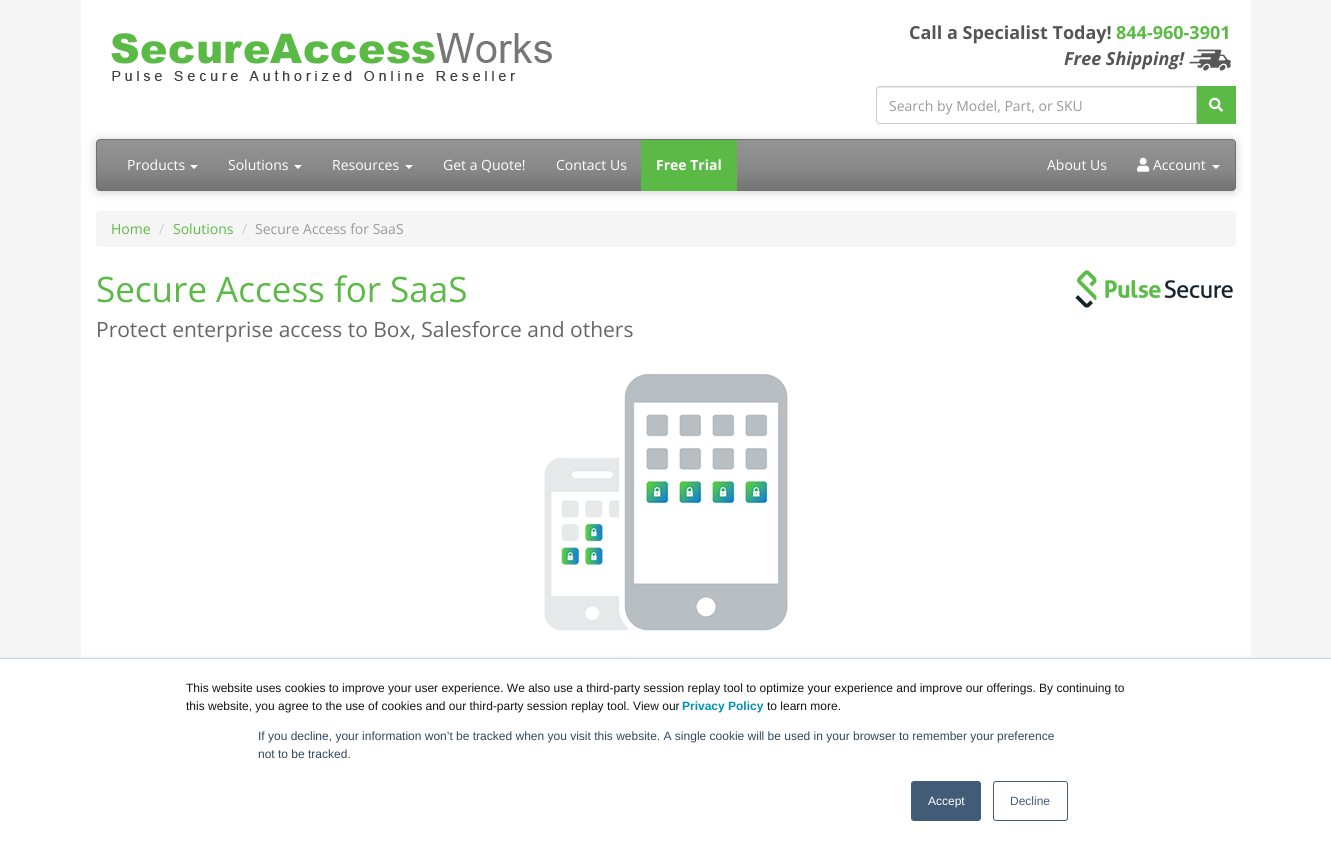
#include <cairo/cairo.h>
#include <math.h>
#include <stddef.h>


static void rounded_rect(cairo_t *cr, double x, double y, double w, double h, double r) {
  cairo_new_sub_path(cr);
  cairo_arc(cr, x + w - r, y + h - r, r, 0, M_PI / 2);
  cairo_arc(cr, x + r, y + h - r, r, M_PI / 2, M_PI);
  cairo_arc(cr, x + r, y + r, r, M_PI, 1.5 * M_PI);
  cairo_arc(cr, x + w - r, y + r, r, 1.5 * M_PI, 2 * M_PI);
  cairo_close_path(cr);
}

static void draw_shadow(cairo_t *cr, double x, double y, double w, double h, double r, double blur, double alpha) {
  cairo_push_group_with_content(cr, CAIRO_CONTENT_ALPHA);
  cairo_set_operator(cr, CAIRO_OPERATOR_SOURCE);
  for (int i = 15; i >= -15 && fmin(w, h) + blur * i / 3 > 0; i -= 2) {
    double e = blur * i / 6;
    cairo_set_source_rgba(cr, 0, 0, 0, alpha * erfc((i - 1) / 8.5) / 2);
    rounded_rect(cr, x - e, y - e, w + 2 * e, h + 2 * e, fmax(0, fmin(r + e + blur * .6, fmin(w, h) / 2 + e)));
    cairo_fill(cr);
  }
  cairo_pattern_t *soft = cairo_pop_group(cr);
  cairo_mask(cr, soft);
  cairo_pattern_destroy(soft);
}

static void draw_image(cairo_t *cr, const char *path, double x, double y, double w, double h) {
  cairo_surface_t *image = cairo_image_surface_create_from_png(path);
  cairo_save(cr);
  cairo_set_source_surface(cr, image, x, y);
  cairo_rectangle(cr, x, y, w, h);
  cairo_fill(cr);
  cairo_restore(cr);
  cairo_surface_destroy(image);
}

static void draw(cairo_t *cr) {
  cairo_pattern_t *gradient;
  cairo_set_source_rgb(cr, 245 / 255.0, 245 / 255.0, 245 / 255.0);
  cairo_paint(cr);
  cairo_set_source_rgb(cr, 1, 1, 1);
  cairo_rectangle(cr, 81, 0, 1170, 658);
  cairo_fill(cr);
  draw_image(cr, "images/1.png", 111, 33, 441, 48);
  draw_image(cr, "images/2.png", 1189, 49, 42, 22);
  cairo_set_source_rgb(cr, 236 / 255.0, 236 / 255.0, 236 / 255.0);
  cairo_new_path(cr);
  cairo_move_to(cr, 880, 88);
  cairo_line_to(cr, 1196, 88);
  cairo_line_to(cr, 1196, 87);
  cairo_line_to(cr, 880, 87);
  cairo_curve_to(cr, 878, 87, 877, 89, 877, 91);
  cairo_curve_to(cr, 877, 89, 878, 88, 880, 88);
  cairo_close_path(cr);
  cairo_fill(cr);
  cairo_new_path(cr);
  cairo_move_to(cr, 880, 86.5);
  cairo_line_to(cr, 1196.5, 86.5);
  cairo_line_to(cr, 1196.5, 123.5);
  cairo_line_to(cr, 880, 123.5);
  cairo_curve_to(cr, 878, 123.5, 876.5, 122, 876.5, 120);
  cairo_line_to(cr, 876.5, 90);
  cairo_curve_to(cr, 876.5, 88, 878, 86.5, 880, 86.5);
  cairo_close_path(cr);
  cairo_set_source_rgb(cr, 204 / 255.0, 204 / 255.0, 204 / 255.0);
  cairo_set_line_width(cr, 1);
  cairo_stroke(cr);
  cairo_set_source_rgb(cr, 91 / 255.0, 186 / 255.0, 70 / 255.0);
  cairo_rectangle(cr, 1197, 86, 39, 38);
  cairo_fill(cr);
  draw_image(cr, "images/3.png", 1209, 97, 14, 15);
  cairo_set_source_rgb(cr, 0, 0, 0);
  draw_shadow(cr, 96, 140, 1140, 52, 4, 5, 0.2);
  cairo_save(cr);
  rounded_rect(cr, 96, 139, 1140, 52, 4);
  cairo_clip(cr);
  gradient = cairo_pattern_create_linear(666, 140, 666, 191);
  cairo_pattern_add_color_stop_rgba(gradient, 0, 148 / 255.0, 148 / 255.0, 148 / 255.0, 1);
  cairo_pattern_add_color_stop_rgba(gradient, 0.6, 135 / 255.0, 135 / 255.0, 135 / 255.0, 1);
  cairo_pattern_add_color_stop_rgba(gradient, 1, 113 / 255.0, 113 / 255.0, 113 / 255.0, 1);
  cairo_set_source(cr, gradient);
  cairo_pattern_destroy(gradient);
  cairo_rectangle(cr, 97, 140, 1138, 51);
  cairo_fill(cr);
  cairo_restore(cr);
  cairo_set_source_rgb(cr, 113 / 255.0, 113 / 255.0, 113 / 255.0);
  cairo_set_fill_rule(cr, CAIRO_FILL_RULE_EVEN_ODD);
  cairo_new_path(cr);
  cairo_move_to(cr, 100, 139);
  cairo_line_to(cr, 1232, 139);
  cairo_curve_to(cr, 1234, 139, 1236, 141, 1236, 143);
  cairo_line_to(cr, 1236, 187);
  cairo_curve_to(cr, 1236, 189, 1234, 191, 1232, 191);
  cairo_line_to(cr, 100, 191);
  cairo_curve_to(cr, 98, 191, 96, 189, 96, 187);
  cairo_line_to(cr, 96, 143);
  cairo_curve_to(cr, 96, 141, 98, 139, 100, 139);
  cairo_close_path(cr);
  cairo_move_to(cr, 100, 140);
  cairo_line_to(cr, 1232, 140);
  cairo_curve_to(cr, 1234, 140, 1235, 141, 1235, 143);
  cairo_line_to(cr, 1235, 187);
  cairo_curve_to(cr, 1235, 189, 1234, 191, 1232, 191);
  cairo_line_to(cr, 100, 191);
  cairo_curve_to(cr, 98, 191, 97, 189, 97, 187);
  cairo_line_to(cr, 97, 143);
  cairo_curve_to(cr, 97, 141, 98, 140, 100, 140);
  cairo_close_path(cr);
  cairo_fill(cr);
  cairo_set_source_rgb(cr, 1, 1, 1);
  cairo_set_fill_rule(cr, CAIRO_FILL_RULE_WINDING);
  cairo_new_path(cr);
  cairo_move_to(cr, 190, 165);
  cairo_line_to(cr, 198, 165);
  cairo_line_to(cr, 194, 169);
  cairo_close_path(cr);
  cairo_fill(cr);
  cairo_new_path(cr);
  cairo_move_to(cr, 294, 165);
  cairo_line_to(cr, 302, 165);
  cairo_line_to(cr, 298, 169);
  cairo_close_path(cr);
  cairo_fill(cr);
  cairo_new_path(cr);
  cairo_move_to(cr, 405, 165);
  cairo_line_to(cr, 413, 165);
  cairo_line_to(cr, 409, 169);
  cairo_close_path(cr);
  cairo_fill(cr);
  cairo_set_source_rgb(cr, 91 / 255.0, 186 / 255.0, 70 / 255.0);
  cairo_rectangle(cr, 641, 140, 96, 51);
  cairo_fill(cr);
  draw_image(cr, "images/4.png", 1137, 157, 13, 15);
  cairo_set_source_rgb(cr, 1, 1, 1);
  cairo_new_path(cr);
  cairo_move_to(cr, 1212, 165);
  cairo_line_to(cr, 1220, 165);
  cairo_line_to(cr, 1216, 169);
  cairo_close_path(cr);
  cairo_fill(cr);
  cairo_set_source_rgb(cr, 245 / 255.0, 245 / 255.0, 245 / 255.0);
  rounded_rect(cr, 96, 211, 1140, 36, 4);
  cairo_fill(cr);
  draw_image(cr, "images/5.png", 1075, 270, 158, 38);
  draw_image(cr, "images/6.png", 544, 373, 244, 285);
  cairo_set_source_rgb(cr, 234 / 255.0, 240 / 255.0, 246 / 255.0);
  draw_shadow(cr, 0, 657, 1331, 189, 0, 1.5, 1);
  cairo_set_source_rgb(cr, 1, 1, 1);
  cairo_rectangle(cr, 0, 659, 1331, 188);
  cairo_fill(cr);
  cairo_set_source_rgb(cr, 203 / 255.0, 214 / 255.0, 226 / 255.0);
  cairo_rectangle(cr, 0, 658, 1331, 1);
  cairo_fill(cr);
  cairo_set_source_rgb(cr, 66 / 255.0, 91 / 255.0, 118 / 255.0);
  rounded_rect(cr, 911.5, 781.5, 69, 39, 2.5);
  cairo_fill_preserve(cr);
  cairo_stroke(cr);
  rounded_rect(cr, 993.5, 781.5, 74, 39, 2.5);
  cairo_stroke(cr);
  cairo_select_font_face(cr, "Open Sans", CAIRO_FONT_SLANT_NORMAL, CAIRO_FONT_WEIGHT_BOLD);
  cairo_set_font_size(cr, 18);
  cairo_set_source_rgb(cr, 85 / 255.0, 85 / 255.0, 85 / 255.0);
  cairo_move_to(cr, 909, 39);
  cairo_show_text(cr, "Call a Specialist Today!");
  cairo_set_source_rgb(cr, 91 / 255.0, 186 / 255.0, 70 / 255.0);
  cairo_move_to(cr, 1116, 39);
  cairo_show_text(cr, "844-960-3901");
  cairo_select_font_face(cr, "Open Sans", CAIRO_FONT_SLANT_ITALIC, CAIRO_FONT_WEIGHT_BOLD);
  cairo_set_source_rgb(cr, 85 / 255.0, 85 / 255.0, 85 / 255.0);
  cairo_move_to(cr, 1064, 65);
  cairo_show_text(cr, "Free Shipping!");
  cairo_select_font_face(cr, "Open Sans", CAIRO_FONT_SLANT_NORMAL, CAIRO_FONT_WEIGHT_NORMAL);
  cairo_set_font_size(cr, 14);
  cairo_set_source_rgb(cr, 153 / 255.0, 153 / 255.0, 153 / 255.0);
  cairo_move_to(cr, 889, 111);
  cairo_show_text(cr, "Search by Model, Part, or SKU");
  cairo_set_source_rgb(cr, 1, 1, 1);
  cairo_move_to(cr, 127, 170);
  cairo_show_text(cr, "Products");
  cairo_move_to(cr, 228, 170);
  cairo_show_text(cr, "Solutions");
  cairo_move_to(cr, 332, 170);
  cairo_show_text(cr, "Resources");
  cairo_move_to(cr, 443, 170);
  cairo_show_text(cr, "Get a Quote!");
  cairo_move_to(cr, 556, 170);
  cairo_show_text(cr, "Contact Us");
  cairo_select_font_face(cr, "Open Sans", CAIRO_FONT_SLANT_NORMAL, CAIRO_FONT_WEIGHT_BOLD);
  cairo_move_to(cr, 656, 170);
  cairo_show_text(cr, "Free Trial");
  cairo_select_font_face(cr, "Open Sans", CAIRO_FONT_SLANT_NORMAL, CAIRO_FONT_WEIGHT_NORMAL);
  cairo_move_to(cr, 1047, 170);
  cairo_show_text(cr, "About Us");
  cairo_move_to(cr, 1153, 170);
  cairo_show_text(cr, "Account");
  cairo_set_source_rgb(cr, 91 / 255.0, 186 / 255.0, 70 / 255.0);
  cairo_move_to(cr, 111, 234);
  cairo_show_text(cr, "Home");
  cairo_set_source_rgb(cr, 204 / 255.0, 204 / 255.0, 204 / 255.0);
  cairo_move_to(cr, 159, 234);
  cairo_show_text(cr, "/");
  cairo_set_source_rgb(cr, 91 / 255.0, 186 / 255.0, 70 / 255.0);
  cairo_move_to(cr, 173, 234);
  cairo_show_text(cr, "Solutions");
  cairo_set_source_rgb(cr, 204 / 255.0, 204 / 255.0, 204 / 255.0);
  cairo_move_to(cr, 242, 234);
  cairo_show_text(cr, "/");
  cairo_set_source_rgb(cr, 153 / 255.0, 153 / 255.0, 153 / 255.0);
  cairo_move_to(cr, 255, 234);
  cairo_show_text(cr, "Secure Access for SaaS");
  cairo_set_font_size(cr, 35);
  cairo_set_source_rgb(cr, 91 / 255.0, 186 / 255.0, 70 / 255.0);
  cairo_move_to(cr, 96, 302);
  cairo_show_text(cr, "Secure Access for SaaS");
  cairo_set_font_size(cr, 21);
  cairo_set_source_rgb(cr, 102 / 255.0, 102 / 255.0, 102 / 255.0);
  cairo_move_to(cr, 96, 337);
  cairo_show_text(cr, "Protect enterprise access to Box, Salesforce and others");
  cairo_select_font_face(cr, "Liberation Sans", CAIRO_FONT_SLANT_NORMAL, CAIRO_FONT_WEIGHT_NORMAL);
  cairo_set_font_size(cr, 12);
  cairo_set_source_rgb(cr, 18 / 255.0, 18 / 255.0, 18 / 255.0);
  cairo_move_to(cr, 186, 692);
  cairo_show_text(cr, "This website uses cookies to improve your user experience. We also use a third-party session replay tool to optimize your experience and improve our offerings. By continuing to");
  cairo_move_to(cr, 186, 710);
  cairo_show_text(cr, "this website, you agree to the use of cookies and our third-party session replay tool. View our");
  cairo_select_font_face(cr, "Liberation Sans", CAIRO_FONT_SLANT_NORMAL, CAIRO_FONT_WEIGHT_BOLD);
  cairo_set_source_rgb(cr, 0, 145 / 255.0, 174 / 255.0);
  cairo_move_to(cr, 682, 710);
  cairo_show_text(cr, "Privacy Policy");
  cairo_select_font_face(cr, "Liberation Sans", CAIRO_FONT_SLANT_NORMAL, CAIRO_FONT_WEIGHT_NORMAL);
  cairo_set_source_rgb(cr, 18 / 255.0, 18 / 255.0, 18 / 255.0);
  cairo_move_to(cr, 767, 710);
  cairo_show_text(cr, "to learn more.");
  cairo_set_source_rgb(cr, 51 / 255.0, 71 / 255.0, 91 / 255.0);
  cairo_move_to(cr, 258, 740);
  cairo_show_text(cr, "If you decline, your information won’t be tracked when you visit this website. A single cookie will be used in your browser to remember your preference");
  cairo_move_to(cr, 258, 758);
  cairo_show_text(cr, "not to be tracked.");
  cairo_set_source_rgb(cr, 1, 1, 1);
  cairo_move_to(cr, 928, 805);
  cairo_show_text(cr, "Accept");
  cairo_set_source_rgb(cr, 66 / 255.0, 91 / 255.0, 118 / 255.0);
  cairo_move_to(cr, 1010, 805);
  cairo_show_text(cr, "Decline");
}

int main(void) {
  cairo_surface_t *surface = cairo_image_surface_create(CAIRO_FORMAT_RGB24, 1331, 847);
  cairo_t *cr = cairo_create(surface);
  cairo_font_options_t *options = cairo_font_options_create();
  cairo_font_options_set_hint_metrics(options, CAIRO_HINT_METRICS_OFF);
  cairo_font_options_set_hint_style(options, CAIRO_HINT_STYLE_NONE);
  cairo_set_font_options(cr, options);
  cairo_set_miter_limit(cr, 4);
  draw(cr);
  cairo_surface_write_to_png(surface, "out.png");
  cairo_font_options_destroy(options);
  cairo_destroy(cr);
  cairo_surface_destroy(surface);
  return 0;
}
